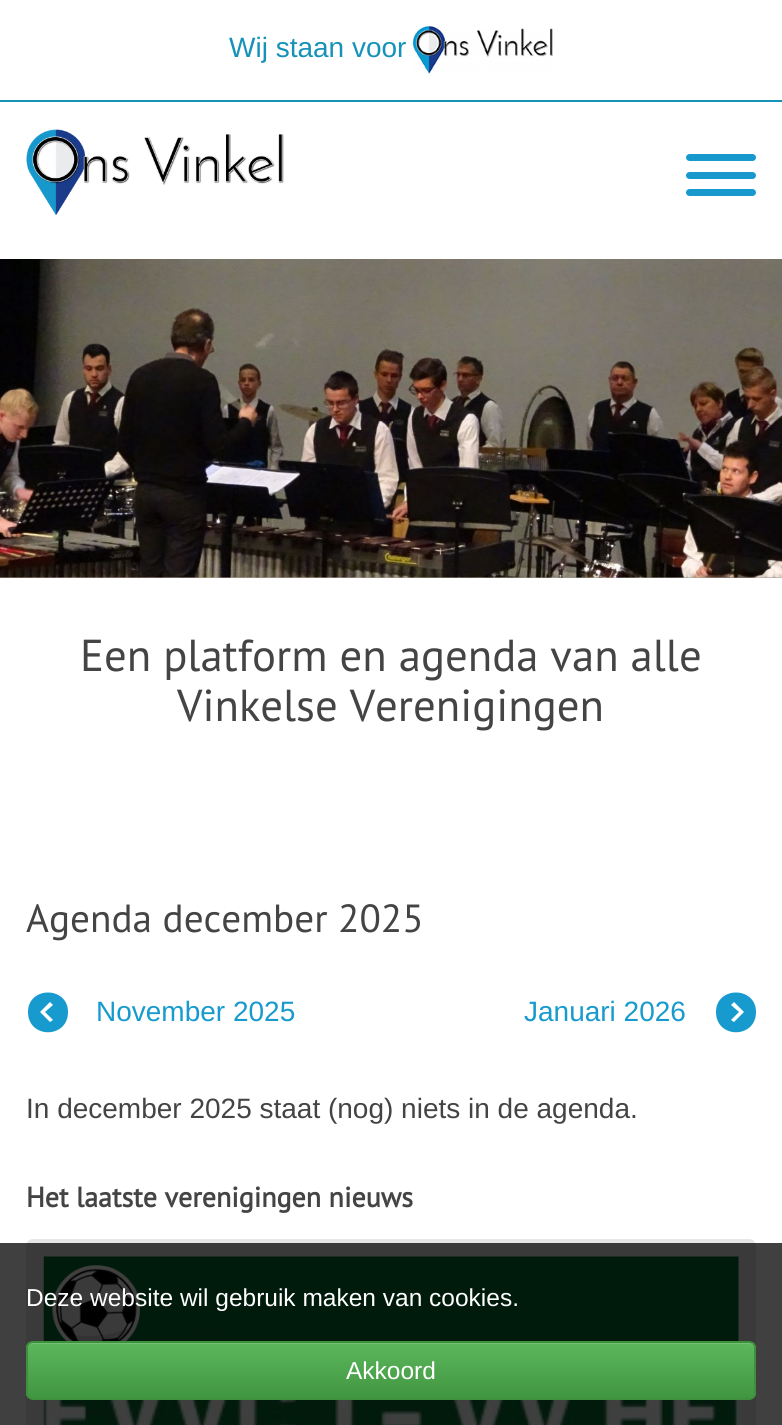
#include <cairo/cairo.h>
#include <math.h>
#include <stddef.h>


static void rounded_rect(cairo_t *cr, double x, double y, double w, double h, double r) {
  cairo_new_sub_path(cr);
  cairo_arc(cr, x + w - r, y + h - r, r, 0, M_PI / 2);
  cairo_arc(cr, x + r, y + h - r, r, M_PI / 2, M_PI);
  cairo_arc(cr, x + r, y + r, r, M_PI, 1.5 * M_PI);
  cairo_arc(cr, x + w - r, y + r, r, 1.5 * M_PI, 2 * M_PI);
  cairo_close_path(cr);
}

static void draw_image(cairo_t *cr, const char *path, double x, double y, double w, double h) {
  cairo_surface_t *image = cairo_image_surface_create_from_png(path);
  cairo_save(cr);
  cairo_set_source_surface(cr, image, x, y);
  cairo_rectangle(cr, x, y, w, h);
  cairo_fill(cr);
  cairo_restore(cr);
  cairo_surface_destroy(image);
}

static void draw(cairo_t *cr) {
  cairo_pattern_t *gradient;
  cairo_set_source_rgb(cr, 1, 1, 1);
  cairo_paint(cr);
  cairo_set_source_rgb(cr, 22 / 255.0, 146 / 255.0, 184 / 255.0);
  cairo_rectangle(cr, 0, 100, 782, 2);
  cairo_fill(cr);
  draw_image(cr, "images/1.png", 413, 26, 140, 48);
  draw_image(cr, "images/2.png", 26, 129, 258, 87);
  cairo_set_source_rgb(cr, 24 / 255.0, 153 / 255.0, 205 / 255.0);
  rounded_rect(cr, 686, 172, 70, 7, 3.5);
  cairo_fill(cr);
  rounded_rect(cr, 686, 154, 70, 7, 3.5);
  cairo_fill(cr);
  rounded_rect(cr, 686, 189, 70, 7, 3.5);
  cairo_fill(cr);
  draw_image(cr, "images/4.png", 0, 577, 782, 1);
  draw_image(cr, "images/3.png", 0, 259, 782, 319);
  cairo_set_source_rgb(cr, 23 / 255.0, 154 / 255.0, 206 / 255.0);
  cairo_set_fill_rule(cr, CAIRO_FILL_RULE_EVEN_ODD);
  cairo_new_path(cr);
  cairo_move_to(cr, 28, 1012);
  cairo_curve_to(cr, 28, 986, 68, 986, 68, 1012);
  cairo_curve_to(cr, 68, 1039, 28, 1039, 28, 1012);
  cairo_close_path(cr);
  cairo_move_to(cr, 50, 1002);
  cairo_line_to(cr, 53, 1005);
  cairo_line_to(cr, 45, 1012);
  cairo_line_to(cr, 53, 1020);
  cairo_line_to(cr, 50, 1022);
  cairo_line_to(cr, 40, 1012);
  cairo_close_path(cr);
  cairo_fill(cr);
  cairo_new_path(cr);
  cairo_move_to(cr, 756, 1012);
  cairo_curve_to(cr, 756, 986, 716, 986, 716, 1012);
  cairo_curve_to(cr, 716, 1039, 756, 1039, 756, 1012);
  cairo_close_path(cr);
  cairo_move_to(cr, 734, 1002);
  cairo_line_to(cr, 744, 1012);
  cairo_line_to(cr, 734, 1022);
  cairo_line_to(cr, 731, 1020);
  cairo_line_to(cr, 739, 1012);
  cairo_line_to(cr, 731, 1005);
  cairo_close_path(cr);
  cairo_fill(cr);
  cairo_set_source_rgb(cr, 230 / 255.0, 230 / 255.0, 230 / 255.0);
  rounded_rect(cr, 26, 1239, 730, 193, 7);
  cairo_fill(cr);
  draw_image(cr, "images/5.png", 43, 1256, 696, 169);
  draw_image(cr, "images/6.png", 52, 1265, 88, 76);
  cairo_set_source_rgba(cr, 0, 0, 0, 0.75);
  cairo_rectangle(cr, 0, 1243, 782, 182);
  cairo_fill(cr);
  cairo_save(cr);
  cairo_set_fill_rule(cr, CAIRO_FILL_RULE_WINDING);
  rounded_rect(cr, 26, 1341, 730, 59, 7);
  cairo_clip(cr);
  gradient = cairo_pattern_create_linear(391, 1342, 391, 1398);
  cairo_pattern_add_color_stop_rgba(gradient, 0, 92 / 255.0, 184 / 255.0, 92 / 255.0, 1);
  cairo_pattern_add_color_stop_rgba(gradient, 1, 65 / 255.0, 150 / 255.0, 65 / 255.0, 1);
  cairo_set_source(cr, gradient);
  cairo_pattern_destroy(gradient);
  cairo_rectangle(cr, 26, 1342, 730, 56);
  cairo_fill(cr);
  cairo_restore(cr);
  cairo_set_source_rgba(cr, 1, 1, 1, 0.15);
  cairo_set_fill_rule(cr, CAIRO_FILL_RULE_WINDING);
  cairo_new_path(cr);
  cairo_move_to(cr, 33, 1344);
  cairo_line_to(cr, 749, 1344);
  cairo_curve_to(cr, 752, 1344, 754, 1346, 754, 1349);
  cairo_line_to(cr, 754, 1347);
  cairo_curve_to(cr, 754, 1344, 752, 1342, 749, 1342);
  cairo_line_to(cr, 33, 1342);
  cairo_curve_to(cr, 30, 1342, 28, 1344, 28, 1347);
  cairo_line_to(cr, 28, 1349);
  cairo_curve_to(cr, 28, 1346, 30, 1344, 33, 1344);
  cairo_close_path(cr);
  cairo_fill(cr);
  rounded_rect(cr, 27, 1342, 728, 57, 6);
  cairo_set_source_rgb(cr, 62 / 255.0, 143 / 255.0, 62 / 255.0);
  cairo_stroke(cr);
  cairo_select_font_face(cr, "Liberation Sans", CAIRO_FONT_SLANT_NORMAL, CAIRO_FONT_WEIGHT_NORMAL);
  cairo_set_font_size(cr, 28);
  cairo_set_source_rgb(cr, 22 / 255.0, 146 / 255.0, 184 / 255.0);
  cairo_move_to(cr, 229, 57);
  cairo_show_text(cr, "Wij staan voor");
  cairo_select_font_face(cr, "PT Sans", CAIRO_FONT_SLANT_NORMAL, CAIRO_FONT_WEIGHT_NORMAL);
  cairo_set_font_size(cr, 44.75);
  cairo_set_source_rgb(cr, 68 / 255.0, 68 / 255.0, 68 / 255.0);
  cairo_move_to(cr, 80, 671);
  cairo_show_text(cr, "Een platform en agenda van alle");
  cairo_move_to(cr, 177, 721);
  cairo_show_text(cr, "Vinkelse Verenigingen");
  cairo_set_font_size(cr, 39.25);
  cairo_move_to(cr, 26, 932);
  cairo_show_text(cr, "Agenda december 2025");
  cairo_select_font_face(cr, "Liberation Sans", CAIRO_FONT_SLANT_NORMAL, CAIRO_FONT_WEIGHT_NORMAL);
  cairo_set_font_size(cr, 28);
  cairo_set_source_rgb(cr, 23 / 255.0, 154 / 255.0, 206 / 255.0);
  cairo_move_to(cr, 96, 1021);
  cairo_show_text(cr, "November 2025");
  cairo_move_to(cr, 524, 1021);
  cairo_show_text(cr, "Januari 2026");
  cairo_set_source_rgb(cr, 68 / 255.0, 68 / 255.0, 68 / 255.0);
  cairo_move_to(cr, 26, 1118);
  cairo_show_text(cr, "In december 2025 staat (nog) niets in de agenda.");
  cairo_select_font_face(cr, "PT Sans", CAIRO_FONT_SLANT_NORMAL, CAIRO_FONT_WEIGHT_BOLD);
  cairo_move_to(cr, 26, 1207);
  cairo_show_text(cr, "Het laatste verenigingen nieuws");
  cairo_select_font_face(cr, "Liberation Sans", CAIRO_FONT_SLANT_NORMAL, CAIRO_FONT_WEIGHT_NORMAL);
  cairo_set_font_size(cr, 24.5);
  cairo_set_source_rgb(cr, 1, 1, 1);
  cairo_move_to(cr, 26, 1306);
  cairo_show_text(cr, "Deze website wil gebruik maken van cookies.");
  cairo_move_to(cr, 346, 1379);
  cairo_show_text(cr, "Akkoord");
}

int main(void) {
  cairo_surface_t *surface = cairo_image_surface_create(CAIRO_FORMAT_RGB24, 782, 1425);
  cairo_t *cr = cairo_create(surface);
  cairo_font_options_t *options = cairo_font_options_create();
  cairo_font_options_set_hint_metrics(options, CAIRO_HINT_METRICS_OFF);
  cairo_font_options_set_hint_style(options, CAIRO_HINT_STYLE_NONE);
  cairo_set_font_options(cr, options);
  cairo_set_miter_limit(cr, 4);
  draw(cr);
  cairo_surface_write_to_png(surface, "out.png");
  cairo_font_options_destroy(options);
  cairo_destroy(cr);
  cairo_surface_destroy(surface);
  return 0;
}
